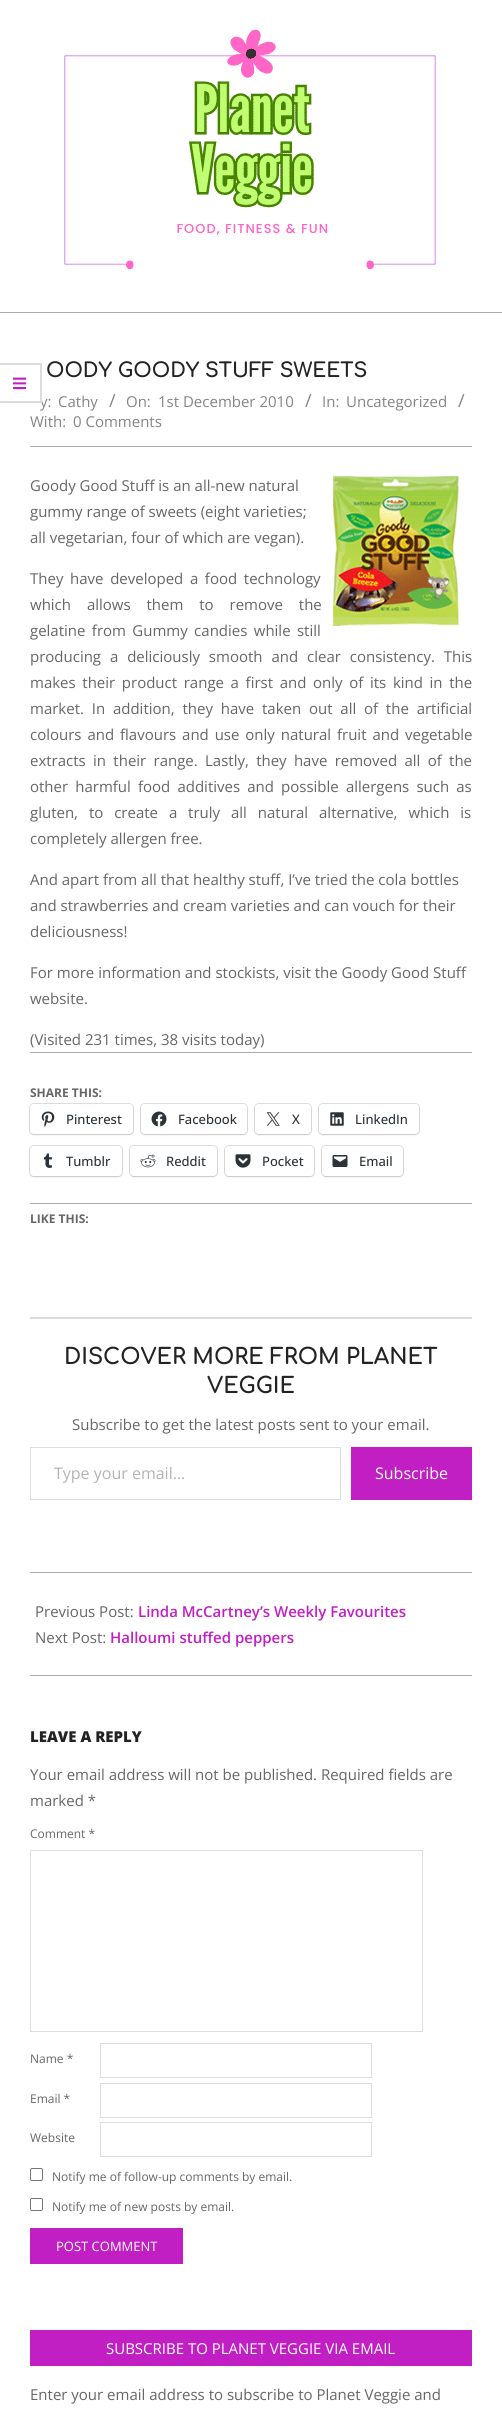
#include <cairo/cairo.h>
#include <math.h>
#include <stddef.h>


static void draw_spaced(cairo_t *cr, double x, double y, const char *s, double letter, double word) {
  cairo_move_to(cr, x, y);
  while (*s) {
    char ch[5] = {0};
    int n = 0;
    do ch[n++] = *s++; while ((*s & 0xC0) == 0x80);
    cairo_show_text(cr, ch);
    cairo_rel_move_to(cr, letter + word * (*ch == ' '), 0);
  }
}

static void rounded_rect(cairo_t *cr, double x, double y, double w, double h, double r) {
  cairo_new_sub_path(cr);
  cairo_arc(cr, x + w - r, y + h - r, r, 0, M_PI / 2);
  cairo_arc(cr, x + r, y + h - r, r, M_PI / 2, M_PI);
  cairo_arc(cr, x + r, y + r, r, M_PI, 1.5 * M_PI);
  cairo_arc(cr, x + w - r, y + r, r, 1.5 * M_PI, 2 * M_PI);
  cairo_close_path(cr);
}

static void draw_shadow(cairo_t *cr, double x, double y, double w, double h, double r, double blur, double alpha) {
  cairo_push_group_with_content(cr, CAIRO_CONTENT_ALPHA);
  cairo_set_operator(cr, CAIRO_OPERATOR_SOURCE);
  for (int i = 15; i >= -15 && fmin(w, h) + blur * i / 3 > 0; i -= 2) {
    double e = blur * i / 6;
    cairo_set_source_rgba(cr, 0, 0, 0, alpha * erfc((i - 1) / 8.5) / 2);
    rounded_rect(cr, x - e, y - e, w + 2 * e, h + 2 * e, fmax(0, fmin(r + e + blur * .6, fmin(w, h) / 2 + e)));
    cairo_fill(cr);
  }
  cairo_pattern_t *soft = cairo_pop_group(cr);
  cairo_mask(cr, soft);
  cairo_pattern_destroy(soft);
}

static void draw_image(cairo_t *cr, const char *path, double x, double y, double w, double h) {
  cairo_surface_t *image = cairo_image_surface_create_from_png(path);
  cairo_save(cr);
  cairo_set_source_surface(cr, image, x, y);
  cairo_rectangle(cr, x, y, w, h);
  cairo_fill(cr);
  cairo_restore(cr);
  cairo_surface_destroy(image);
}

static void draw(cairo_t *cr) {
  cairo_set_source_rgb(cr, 1, 1, 1);
  cairo_paint(cr);
  cairo_set_source_rgb(cr, 171 / 255.0, 171 / 255.0, 171 / 255.0);
  cairo_rectangle(cr, 0, 312, 502, 1);
  cairo_fill(cr);
  draw_image(cr, "images/1.png", 64, 29, 372, 241);
  cairo_set_source_rgb(cr, 219 / 255.0, 219 / 255.0, 219 / 255.0);
  cairo_new_path(cr);
  cairo_move_to(cr, 0, 363);
  cairo_line_to(cr, 42, 363);
  cairo_line_to(cr, 40, 365);
  cairo_line_to(cr, 0, 365);
  cairo_close_path(cr);
  cairo_fill(cr);
  draw_image(cr, "images/2.png", 13, 377, 14, 13);
  cairo_set_source_rgb(cr, 171 / 255.0, 171 / 255.0, 171 / 255.0);
  cairo_rectangle(cr, 30, 446, 442, 1);
  cairo_fill(cr);
  cairo_rectangle(cr, 30, 1572, 442, 1);
  cairo_fill(cr);
  draw_image(cr, "images/3.png", 333, 476, 126, 150);
  cairo_rectangle(cr, 30, 1052, 442, 1);
  cairo_fill(cr);
  rounded_rect(cr, 29.5, 1103.5, 104, 31, 4.5);
  cairo_set_source_rgb(cr, 224 / 255.0, 224 / 255.0, 224 / 255.0);
  cairo_set_line_width(cr, 1);
  cairo_stroke(cr);
  cairo_set_source_rgb(cr, 0, 0, 0);
  draw_shadow(cr, 30, 1105, 103, 30, 4, 1, 0.12);
  cairo_set_source_rgb(cr, 1, 1, 1);
  rounded_rect(cr, 30, 1104, 103, 30, 4);
  cairo_fill(cr);
  draw_image(cr, "images/4.png", 41, 1111, 14, 16);
  rounded_rect(cr, 140.5, 1103.5, 107, 31, 4.5);
  cairo_set_source_rgb(cr, 224 / 255.0, 224 / 255.0, 224 / 255.0);
  cairo_stroke(cr);
  cairo_set_source_rgb(cr, 0, 0, 0);
  draw_shadow(cr, 141, 1105, 106, 30, 4, 1, 0.12);
  cairo_set_source_rgb(cr, 1, 1, 1);
  rounded_rect(cr, 141, 1104, 106, 30, 4);
  cairo_fill(cr);
  draw_image(cr, "images/5.png", 151, 1111, 16, 16);
  rounded_rect(cr, 254.5, 1103.5, 57, 31, 4.5);
  cairo_set_source_rgb(cr, 224 / 255.0, 224 / 255.0, 224 / 255.0);
  cairo_stroke(cr);
  cairo_set_source_rgb(cr, 0, 0, 0);
  draw_shadow(cr, 255, 1105, 56, 30, 4, 1, 0.12);
  cairo_set_source_rgb(cr, 1, 1, 1);
  rounded_rect(cr, 255, 1104, 56, 30, 4);
  cairo_fill(cr);
  draw_image(cr, "images/6.png", 266, 1112, 14, 14);
  rounded_rect(cr, 318.5, 1103.5, 101, 31, 4.5);
  cairo_set_source_rgb(cr, 224 / 255.0, 224 / 255.0, 224 / 255.0);
  cairo_stroke(cr);
  cairo_set_source_rgb(cr, 0, 0, 0);
  draw_shadow(cr, 319, 1105, 100, 30, 4, 1, 0.12);
  cairo_set_source_rgb(cr, 1, 1, 1);
  rounded_rect(cr, 319, 1104, 100, 30, 4);
  cairo_fill(cr);
  draw_image(cr, "images/7.png", 330, 1112, 14, 14);
  rounded_rect(cr, 29.5, 1145.5, 93, 31, 4.5);
  cairo_set_source_rgb(cr, 224 / 255.0, 224 / 255.0, 224 / 255.0);
  cairo_stroke(cr);
  cairo_set_source_rgb(cr, 0, 0, 0);
  draw_shadow(cr, 30, 1147, 92, 30, 4, 1, 0.12);
  cairo_set_source_rgb(cr, 1, 1, 1);
  rounded_rect(cr, 30, 1146, 92, 30, 4);
  cairo_fill(cr);
  draw_image(cr, "images/8.png", 43, 1153, 10, 15);
  rounded_rect(cr, 129.5, 1145.5, 88, 31, 4.5);
  cairo_set_source_rgb(cr, 224 / 255.0, 224 / 255.0, 224 / 255.0);
  cairo_stroke(cr);
  cairo_set_source_rgb(cr, 0, 0, 0);
  draw_shadow(cr, 130, 1147, 87, 30, 4, 1, 0.12);
  cairo_set_source_rgb(cr, 1, 1, 1);
  rounded_rect(cr, 130, 1146, 87, 30, 4);
  cairo_fill(cr);
  draw_image(cr, "images/9.png", 140, 1154, 16, 14);
  rounded_rect(cr, 224.5, 1145.5, 90, 31, 4.5);
  cairo_set_source_rgb(cr, 224 / 255.0, 224 / 255.0, 224 / 255.0);
  cairo_stroke(cr);
  cairo_set_source_rgb(cr, 0, 0, 0);
  draw_shadow(cr, 225, 1147, 89, 30, 4, 1, 0.12);
  cairo_set_source_rgb(cr, 1, 1, 1);
  rounded_rect(cr, 225, 1146, 89, 30, 4);
  cairo_fill(cr);
  draw_image(cr, "images/10.png", 235, 1154, 16, 14);
  rounded_rect(cr, 321.5, 1145.5, 82, 31, 4.5);
  cairo_set_source_rgb(cr, 224 / 255.0, 224 / 255.0, 224 / 255.0);
  cairo_stroke(cr);
  cairo_set_source_rgb(cr, 0, 0, 0);
  draw_shadow(cr, 322, 1147, 81, 30, 4, 1, 0.12);
  cairo_set_source_rgb(cr, 1, 1, 1);
  rounded_rect(cr, 322, 1146, 81, 30, 4);
  cairo_fill(cr);
  draw_image(cr, "images/11.png", 332, 1155, 16, 12);
  cairo_set_source_rgb(cr, 171 / 255.0, 171 / 255.0, 171 / 255.0);
  cairo_rectangle(cr, 30, 1203, 442, 1);
  cairo_fill(cr);
  cairo_set_source_rgb(cr, 219 / 255.0, 219 / 255.0, 219 / 255.0);
  cairo_rectangle(cr, 30, 1317, 442, 2);
  cairo_fill(cr);
  cairo_rectangle(cr, 30.5, 1447.5, 310, 52);
  cairo_set_source_rgb(cr, 221 / 255.0, 221 / 255.0, 221 / 255.0);
  cairo_stroke(cr);
  cairo_set_source_rgb(cr, 193 / 255.0, 31 / 255.0, 196 / 255.0);
  cairo_rectangle(cr, 351, 1447, 121, 53);
  cairo_fill(cr);
  cairo_set_source_rgb(cr, 171 / 255.0, 171 / 255.0, 171 / 255.0);
  cairo_rectangle(cr, 30, 1675, 442, 1);
  cairo_fill(cr);
  cairo_rectangle(cr, 30.5, 1850.5, 392, 181);
  cairo_set_source_rgb(cr, 221 / 255.0, 221 / 255.0, 221 / 255.0);
  cairo_stroke(cr);
  cairo_rectangle(cr, 100.5, 2043.5, 271, 34);
  cairo_stroke(cr);
  cairo_rectangle(cr, 100.5, 2083.5, 271, 34);
  cairo_stroke(cr);
  cairo_rectangle(cr, 100.5, 2122.5, 271, 34);
  cairo_stroke(cr);
  rounded_rect(cr, 30.5, 2168.5, 12, 12, 1.5);
  cairo_set_source_rgb(cr, 118 / 255.0, 118 / 255.0, 118 / 255.0);
  cairo_stroke(cr);
  rounded_rect(cr, 30.5, 2198.5, 12, 12, 1.5);
  cairo_stroke(cr);
  cairo_set_source_rgb(cr, 193 / 255.0, 31 / 255.0, 196 / 255.0);
  cairo_rectangle(cr, 30, 2228, 153, 36);
  cairo_fill(cr);
  cairo_rectangle(cr, 30, 2330, 442, 36);
  cairo_fill(cr);
  cairo_select_font_face(cr, "Comfortaa", CAIRO_FONT_SLANT_NORMAL, CAIRO_FONT_WEIGHT_BOLD);
  cairo_set_font_size(cr, 20);
  cairo_set_source_rgb(cr, 34 / 255.0, 34 / 255.0, 34 / 255.0);
  cairo_move_to(cr, 46, 377);
  cairo_show_text(cr, "OODY GOODY STUFF SWEETS");
  cairo_select_font_face(cr, "Open Sans", CAIRO_FONT_SLANT_NORMAL, CAIRO_FONT_WEIGHT_NORMAL);
  cairo_set_font_size(cr, 15);
  cairo_set_source_rgb(cr, 133 / 255.0, 133 / 255.0, 133 / 255.0);
  cairo_move_to(cr, 40, 407);
  cairo_show_text(cr, "y:");
  cairo_set_source_rgb(cr, 1, 1, 1);
  cairo_rectangle(cr, 39, 399, 3, 4);
  cairo_fill(cr);
  cairo_set_source_rgba(cr, 0, 0, 0, 0.14);
  cairo_new_path(cr);
  cairo_move_to(cr, 42, 363);
  cairo_line_to(cr, 42, 403);
  cairo_line_to(cr, 40, 401);
  cairo_line_to(cr, 40, 365);
  cairo_close_path(cr);
  cairo_fill(cr);
  cairo_new_path(cr);
  cairo_move_to(cr, 42, 403);
  cairo_line_to(cr, 0, 403);
  cairo_line_to(cr, 0, 401);
  cairo_line_to(cr, 40, 401);
  cairo_close_path(cr);
  cairo_fill(cr);
  cairo_set_source_rgb(cr, 133 / 255.0, 133 / 255.0, 133 / 255.0);
  cairo_move_to(cr, 58, 407);
  cairo_show_text(cr, "Cathy");
  cairo_set_font_size(cr, 18);
  cairo_move_to(cr, 109, 407);
  cairo_show_text(cr, "/");
  cairo_set_font_size(cr, 15);
  cairo_move_to(cr, 126, 407);
  cairo_show_text(cr, "On:");
  cairo_move_to(cr, 158, 407);
  cairo_show_text(cr, "1st December 2010");
  cairo_set_font_size(cr, 18);
  cairo_move_to(cr, 305, 407);
  cairo_show_text(cr, "/");
  cairo_set_font_size(cr, 15);
  cairo_move_to(cr, 322, 407);
  cairo_show_text(cr, "In:");
  cairo_move_to(cr, 346, 407);
  cairo_show_text(cr, "Uncategorized");
  cairo_set_font_size(cr, 18);
  cairo_move_to(cr, 458, 407);
  cairo_show_text(cr, "/");
  cairo_set_font_size(cr, 15);
  cairo_move_to(cr, 30, 427);
  cairo_show_text(cr, "With:");
  cairo_move_to(cr, 73, 427);
  cairo_show_text(cr, "0 Comments");
  cairo_set_source_rgb(cr, 102 / 255.0, 102 / 255.0, 102 / 255.0);
  cairo_move_to(cr, 30, 491);
  cairo_show_text(cr, "Goody Good Stuff is an all-new natural");
  cairo_move_to(cr, 30, 517);
  cairo_show_text(cr, "gummy range of sweets (eight varieties;");
  cairo_move_to(cr, 30, 543);
  cairo_show_text(cr, "all vegetarian, four of which are vegan).");
  draw_spaced(cr, 30, 584, "They have developed a food technology", 0, 2.75);
  draw_spaced(cr, 30, 610, "which allows them to remove the", 0, 12);
  draw_spaced(cr, 30, 636, "gelatine from Gummy candies while still", 0, 2.5);
  draw_spaced(cr, 30, 662, "producing a deliciously smooth and clear consistency. This", 0, 5);
  draw_spaced(cr, 30, 688, "makes their product range a first and only of its kind in the", 0, 2.75);
  draw_spaced(cr, 30, 714, "market. In addition, they have taken out all of the artificial", 0, 3.9);
  draw_spaced(cr, 30, 740, "colours and flavours and use only natural fruit and vegetable", 0, 2);
  draw_spaced(cr, 30, 766, "extracts in their range. Lastly, they have removed all of the", 0, 3.4);
  draw_spaced(cr, 30, 792, "other harmful food additives and possible allergens such as", 0, 3.25);
  draw_spaced(cr, 30, 818, "gluten, to create a truly all natural alternative, which is", 0, 7);
  cairo_move_to(cr, 30, 844);
  cairo_show_text(cr, "completely allergen free.");
  cairo_move_to(cr, 30, 885);
  cairo_show_text(cr, "And apart from all that healthy stuff, I’ve tried the cola bottles");
  cairo_move_to(cr, 30, 911);
  cairo_show_text(cr, "and strawberries and cream varieties and can vouch for their");
  cairo_move_to(cr, 30, 937);
  cairo_show_text(cr, "deliciousness!");
  cairo_move_to(cr, 30, 978);
  cairo_show_text(cr, "For more information and stockists, visit the Goody Good Stuff");
  cairo_move_to(cr, 30, 1004);
  cairo_show_text(cr, "website.");
  cairo_move_to(cr, 30, 1045);
  cairo_show_text(cr, "(Visited 231 times, 38 visits today)");
  cairo_select_font_face(cr, "Open Sans", CAIRO_FONT_SLANT_NORMAL, CAIRO_FONT_WEIGHT_BOLD);
  cairo_set_font_size(cr, 12);
  cairo_move_to(cr, 30, 1097);
  cairo_show_text(cr, "SHARE THIS:");
  cairo_select_font_face(cr, "Open Sans Medium", CAIRO_FONT_SLANT_NORMAL, CAIRO_FONT_WEIGHT_NORMAL);
  cairo_set_font_size(cr, 13);
  cairo_set_source_rgb(cr, 44 / 255.0, 51 / 255.0, 56 / 255.0);
  cairo_move_to(cr, 66, 1124);
  cairo_show_text(cr, "Pinterest");
  cairo_move_to(cr, 178, 1124);
  cairo_show_text(cr, "Facebook");
  cairo_move_to(cr, 292, 1124);
  cairo_show_text(cr, "X");
  cairo_move_to(cr, 355, 1124);
  cairo_show_text(cr, "LinkedIn");
  cairo_move_to(cr, 66, 1166);
  cairo_show_text(cr, "Tumblr");
  cairo_move_to(cr, 166, 1166);
  cairo_show_text(cr, "Reddit");
  cairo_move_to(cr, 262, 1166);
  cairo_show_text(cr, "Pocket");
  cairo_move_to(cr, 359, 1166);
  cairo_show_text(cr, "Email");
  cairo_select_font_face(cr, "Open Sans", CAIRO_FONT_SLANT_NORMAL, CAIRO_FONT_WEIGHT_BOLD);
  cairo_set_font_size(cr, 12);
  cairo_set_source_rgb(cr, 102 / 255.0, 102 / 255.0, 102 / 255.0);
  cairo_move_to(cr, 30, 1223);
  cairo_show_text(cr, "LIKE THIS:");
  cairo_select_font_face(cr, "Comfortaa", CAIRO_FONT_SLANT_NORMAL, CAIRO_FONT_WEIGHT_BOLD);
  cairo_set_font_size(cr, 22);
  cairo_set_source_rgb(cr, 34 / 255.0, 34 / 255.0, 34 / 255.0);
  cairo_move_to(cr, 64, 1364);
  cairo_show_text(cr, "DISCOVER MORE FROM PLANET");
  cairo_move_to(cr, 207, 1393);
  cairo_show_text(cr, "VEGGIE");
  cairo_select_font_face(cr, "Open Sans", CAIRO_FONT_SLANT_NORMAL, CAIRO_FONT_WEIGHT_NORMAL);
  cairo_set_font_size(cr, 15);
  cairo_set_source_rgb(cr, 102 / 255.0, 102 / 255.0, 102 / 255.0);
  cairo_move_to(cr, 72, 1430);
  cairo_show_text(cr, "Subscribe to get the latest posts sent to your email.");
  cairo_set_font_size(cr, 16);
  cairo_set_source_rgb(cr, 179 / 255.0, 179 / 255.0, 179 / 255.0);
  cairo_move_to(cr, 54, 1479);
  cairo_show_text(cr, "Type your email…");
  cairo_set_source_rgb(cr, 1, 1, 1);
  cairo_move_to(cr, 375, 1479);
  cairo_show_text(cr, "Subscribe");
  cairo_set_font_size(cr, 15);
  cairo_set_source_rgb(cr, 102 / 255.0, 102 / 255.0, 102 / 255.0);
  cairo_move_to(cr, 35, 1617);
  cairo_show_text(cr, "Previous Post:");
  cairo_select_font_face(cr, "Open Sans SemiBold", CAIRO_FONT_SLANT_NORMAL, CAIRO_FONT_WEIGHT_NORMAL);
  cairo_set_source_rgb(cr, 193 / 255.0, 31 / 255.0, 196 / 255.0);
  cairo_move_to(cr, 138, 1617);
  cairo_show_text(cr, "Linda McCartney’s Weekly Favourites");
  cairo_select_font_face(cr, "Open Sans", CAIRO_FONT_SLANT_NORMAL, CAIRO_FONT_WEIGHT_NORMAL);
  cairo_set_source_rgb(cr, 102 / 255.0, 102 / 255.0, 102 / 255.0);
  cairo_move_to(cr, 35, 1643);
  cairo_show_text(cr, "Next Post:");
  cairo_select_font_face(cr, "Open Sans SemiBold", CAIRO_FONT_SLANT_NORMAL, CAIRO_FONT_WEIGHT_NORMAL);
  cairo_set_source_rgb(cr, 193 / 255.0, 31 / 255.0, 196 / 255.0);
  cairo_move_to(cr, 110, 1643);
  cairo_show_text(cr, "Halloumi stuffed peppers");
  cairo_select_font_face(cr, "Open Sans ExtraBold", CAIRO_FONT_SLANT_NORMAL, CAIRO_FONT_WEIGHT_NORMAL);
  cairo_set_source_rgb(cr, 34 / 255.0, 34 / 255.0, 34 / 255.0);
  cairo_move_to(cr, 30, 1742);
  cairo_show_text(cr, "LEAVE A REPLY");
  cairo_select_font_face(cr, "Open Sans", CAIRO_FONT_SLANT_NORMAL, CAIRO_FONT_WEIGHT_NORMAL);
  cairo_set_source_rgb(cr, 102 / 255.0, 102 / 255.0, 102 / 255.0);
  cairo_move_to(cr, 30, 1780);
  cairo_show_text(cr, "Your email address will not be published. Required fields are");
  cairo_move_to(cr, 30, 1806);
  cairo_show_text(cr, "marked *");
  cairo_set_font_size(cr, 12);
  cairo_move_to(cr, 30, 1838);
  cairo_show_text(cr, "Comment *");
  cairo_move_to(cr, 30, 2063);
  cairo_show_text(cr, "Name *");
  cairo_move_to(cr, 30, 2103);
  cairo_show_text(cr, "Email *");
  cairo_move_to(cr, 30, 2142);
  cairo_show_text(cr, "Website");
  cairo_move_to(cr, 52, 2181);
  cairo_show_text(cr, "Notify me of follow-up comments by email.");
  cairo_move_to(cr, 52, 2211);
  cairo_show_text(cr, "Notify me of new posts by email.");
  cairo_set_font_size(cr, 13);
  cairo_set_source_rgb(cr, 1, 1, 1);
  cairo_move_to(cr, 56, 2251);
  cairo_show_text(cr, "POST COMMENT");
  cairo_set_font_size(cr, 15);
  cairo_move_to(cr, 106, 2354);
  cairo_show_text(cr, "SUBSCRIBE TO PLANET VEGGIE VIA EMAIL");
  cairo_set_source_rgb(cr, 102 / 255.0, 102 / 255.0, 102 / 255.0);
  cairo_move_to(cr, 30, 2400);
  cairo_show_text(cr, "Enter your email address to subscribe to Planet Veggie and");
}

int main(void) {
  cairo_surface_t *surface = cairo_image_surface_create(CAIRO_FORMAT_RGB24, 502, 2418);
  cairo_t *cr = cairo_create(surface);
  cairo_font_options_t *options = cairo_font_options_create();
  cairo_font_options_set_hint_metrics(options, CAIRO_HINT_METRICS_OFF);
  cairo_font_options_set_hint_style(options, CAIRO_HINT_STYLE_NONE);
  cairo_set_font_options(cr, options);
  cairo_set_miter_limit(cr, 4);
  draw(cr);
  cairo_surface_write_to_png(surface, "out.png");
  cairo_font_options_destroy(options);
  cairo_destroy(cr);
  cairo_surface_destroy(surface);
  return 0;
}
